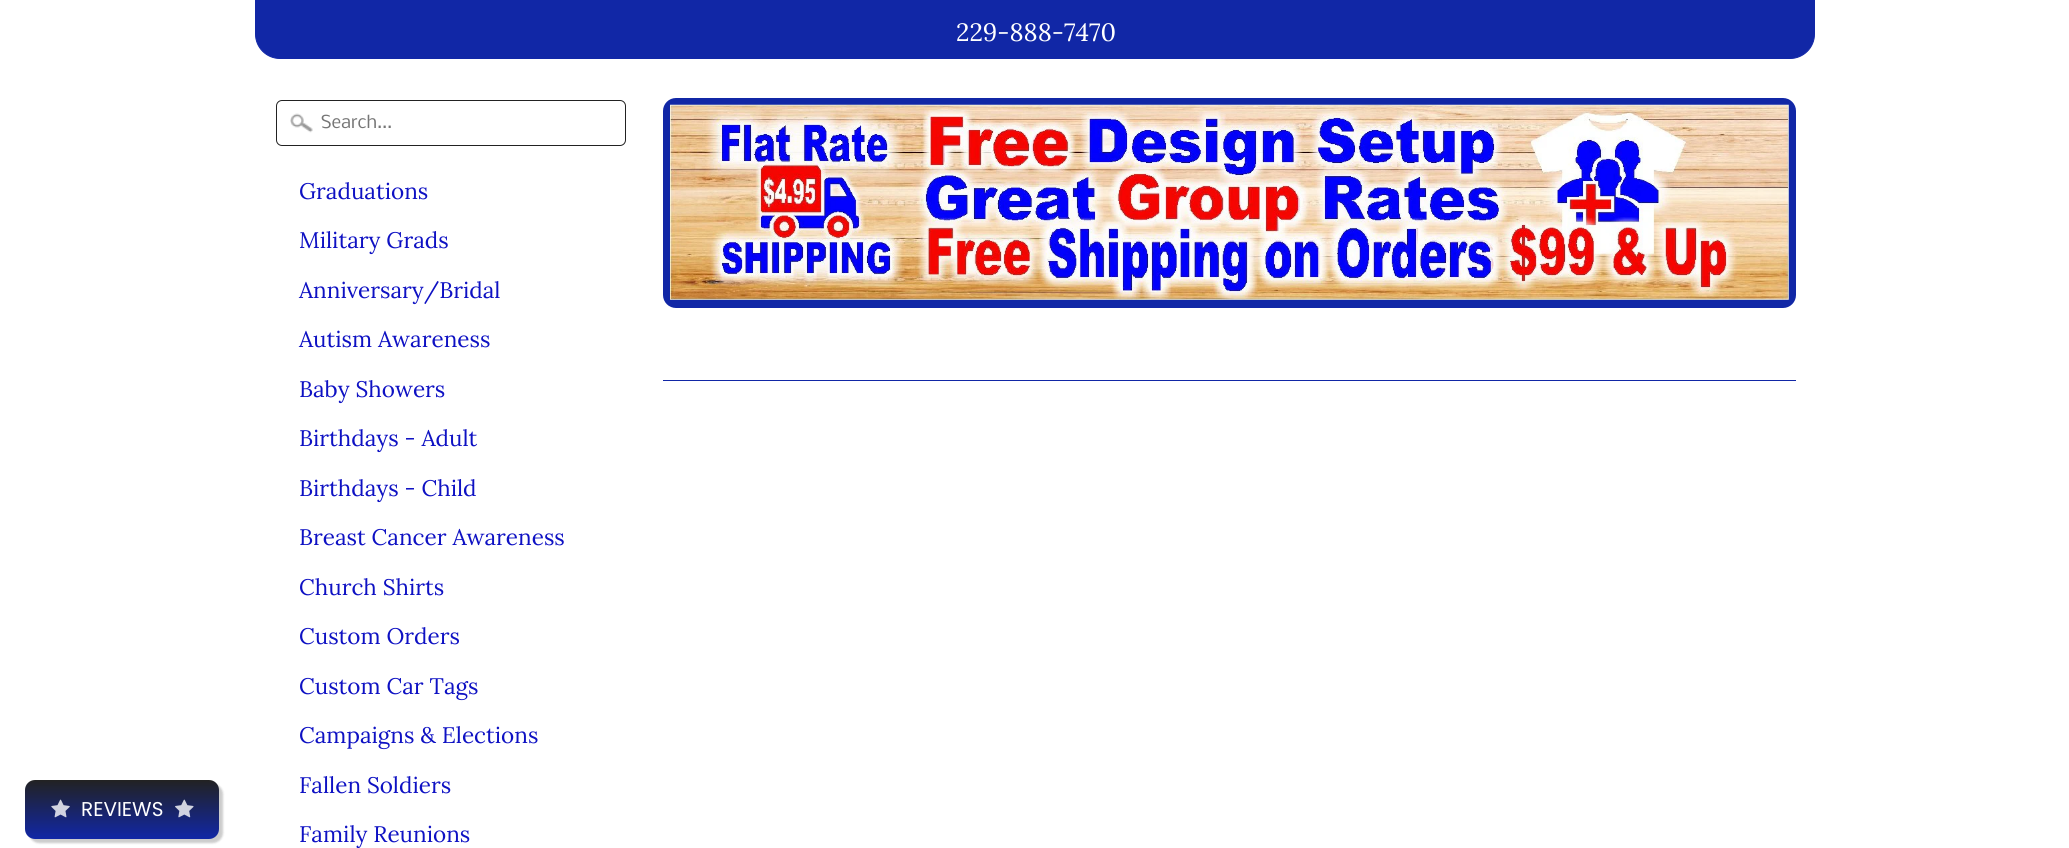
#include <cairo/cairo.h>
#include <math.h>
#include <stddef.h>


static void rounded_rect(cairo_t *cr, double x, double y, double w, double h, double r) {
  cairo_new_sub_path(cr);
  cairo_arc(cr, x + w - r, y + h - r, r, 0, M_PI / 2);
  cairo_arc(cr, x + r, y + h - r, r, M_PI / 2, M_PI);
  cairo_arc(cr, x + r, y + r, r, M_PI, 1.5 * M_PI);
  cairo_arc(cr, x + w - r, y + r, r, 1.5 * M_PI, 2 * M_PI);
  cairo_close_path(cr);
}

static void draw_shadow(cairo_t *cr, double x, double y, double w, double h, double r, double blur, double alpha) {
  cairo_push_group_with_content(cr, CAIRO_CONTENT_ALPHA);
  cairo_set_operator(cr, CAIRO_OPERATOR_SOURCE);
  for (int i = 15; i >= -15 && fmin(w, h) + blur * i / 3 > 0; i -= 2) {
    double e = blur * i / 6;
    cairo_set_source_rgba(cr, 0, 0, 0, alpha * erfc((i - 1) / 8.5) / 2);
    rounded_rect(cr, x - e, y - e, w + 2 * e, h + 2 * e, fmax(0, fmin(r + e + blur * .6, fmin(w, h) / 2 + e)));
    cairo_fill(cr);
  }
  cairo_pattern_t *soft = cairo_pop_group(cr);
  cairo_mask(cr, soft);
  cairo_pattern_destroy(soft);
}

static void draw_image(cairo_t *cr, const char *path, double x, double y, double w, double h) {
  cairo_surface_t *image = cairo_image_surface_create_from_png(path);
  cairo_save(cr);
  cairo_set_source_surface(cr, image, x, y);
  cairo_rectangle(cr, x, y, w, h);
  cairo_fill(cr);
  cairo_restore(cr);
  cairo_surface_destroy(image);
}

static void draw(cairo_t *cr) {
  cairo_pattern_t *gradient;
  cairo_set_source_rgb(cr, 1, 1, 1);
  cairo_paint(cr);
  cairo_set_source_rgb(cr, 0, 0, 0);
  draw_shadow(cr, 29, 784, 194, 59, 10, 1, 0.2);
  gradient = cairo_pattern_create_linear(122, 780, 122, 839);
  cairo_pattern_add_color_stop_rgba(gradient, 0, 34 / 255.0, 34 / 255.0, 34 / 255.0, 1);
  cairo_pattern_add_color_stop_rgba(gradient, 1, 17 / 255.0, 39 / 255.0, 166 / 255.0, 1);
  cairo_set_source(cr, gradient);
  cairo_pattern_destroy(gradient);
  rounded_rect(cr, 25, 780, 194, 59, 10);
  cairo_fill(cr);
  draw_image(cr, "images/1.png", 51, 799, 19, 19);
  draw_image(cr, "images/2.png", 175, 799, 19, 19);
  cairo_set_source_rgb(cr, 17 / 255.0, 39 / 255.0, 166 / 255.0);
  rounded_rect(cr, 255.5, -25.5, 1559, 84, 24.5);
  cairo_fill_preserve(cr);
  cairo_set_line_width(cr, 1);
  cairo_stroke(cr);
  draw_image(cr, "images/3.png", 290, 113, 23, 20);
  rounded_rect(cr, 276.5, 100.5, 349, 45, 5.5);
  cairo_set_source_rgb(cr, 34 / 255.0, 34 / 255.0, 34 / 255.0);
  cairo_stroke(cr);
  cairo_set_source_rgb(cr, 17 / 255.0, 39 / 255.0, 166 / 255.0);
  rounded_rect(cr, 663, 98, 1133, 210, 13);
  cairo_fill(cr);
  draw_image(cr, "images/4.png", 670, 104, 1119, 196);
  cairo_rectangle(cr, 663, 380, 1133, 1);
  cairo_fill(cr);
  cairo_select_font_face(cr, "Poppins", CAIRO_FONT_SLANT_NORMAL, CAIRO_FONT_WEIGHT_NORMAL);
  cairo_set_font_size(cr, 20);
  cairo_set_source_rgb(cr, 1, 1, 1);
  cairo_move_to(cr, 81, 816);
  cairo_show_text(cr, "REVIEWS");
  cairo_select_font_face(cr, "Lora", CAIRO_FONT_SLANT_NORMAL, CAIRO_FONT_WEIGHT_NORMAL);
  cairo_set_font_size(cr, 25);
  cairo_move_to(cr, 956, 41);
  cairo_show_text(cr, "229-888-7470");
  cairo_select_font_face(cr, "Nobile", CAIRO_FONT_SLANT_NORMAL, CAIRO_FONT_WEIGHT_NORMAL);
  cairo_set_font_size(cr, 17);
  cairo_set_source_rgb(cr, 117 / 255.0, 117 / 255.0, 117 / 255.0);
  cairo_move_to(cr, 321, 128);
  cairo_show_text(cr, "Search...");
  cairo_select_font_face(cr, "Lora", CAIRO_FONT_SLANT_NORMAL, CAIRO_FONT_WEIGHT_NORMAL);
  cairo_set_font_size(cr, 22.5);
  cairo_set_source_rgb(cr, 14 / 255.0, 17 / 255.0, 195 / 255.0);
  cairo_move_to(cr, 299, 199);
  cairo_show_text(cr, "Graduations");
  cairo_move_to(cr, 299, 248);
  cairo_show_text(cr, "Military Grads");
  cairo_move_to(cr, 299, 298);
  cairo_show_text(cr, "Anniversary/Bridal");
  cairo_move_to(cr, 299, 347);
  cairo_show_text(cr, "Autism Awareness");
  cairo_move_to(cr, 299, 397);
  cairo_show_text(cr, "Baby Showers");
  cairo_move_to(cr, 299, 446);
  cairo_show_text(cr, "Birthdays - Adult");
  cairo_move_to(cr, 299, 496);
  cairo_show_text(cr, "Birthdays - Child");
  cairo_move_to(cr, 299, 545);
  cairo_show_text(cr, "Breast Cancer Awareness");
  cairo_move_to(cr, 299, 595);
  cairo_show_text(cr, "Church Shirts");
  cairo_move_to(cr, 299, 644);
  cairo_show_text(cr, "Custom Orders");
  cairo_move_to(cr, 299, 694);
  cairo_show_text(cr, "Custom Car Tags");
  cairo_move_to(cr, 299, 743);
  cairo_show_text(cr, "Campaigns & Elections");
  cairo_move_to(cr, 299, 793);
  cairo_show_text(cr, "Fallen Soldiers");
  cairo_move_to(cr, 299, 842);
  cairo_show_text(cr, "Family Reunions");
}

int main(void) {
  cairo_surface_t *surface = cairo_image_surface_create(CAIRO_FORMAT_RGB24, 2069, 848);
  cairo_t *cr = cairo_create(surface);
  cairo_font_options_t *options = cairo_font_options_create();
  cairo_font_options_set_hint_metrics(options, CAIRO_HINT_METRICS_OFF);
  cairo_font_options_set_hint_style(options, CAIRO_HINT_STYLE_NONE);
  cairo_set_font_options(cr, options);
  cairo_set_miter_limit(cr, 4);
  draw(cr);
  cairo_surface_write_to_png(surface, "out.png");
  cairo_font_options_destroy(options);
  cairo_destroy(cr);
  cairo_surface_destroy(surface);
  return 0;
}
